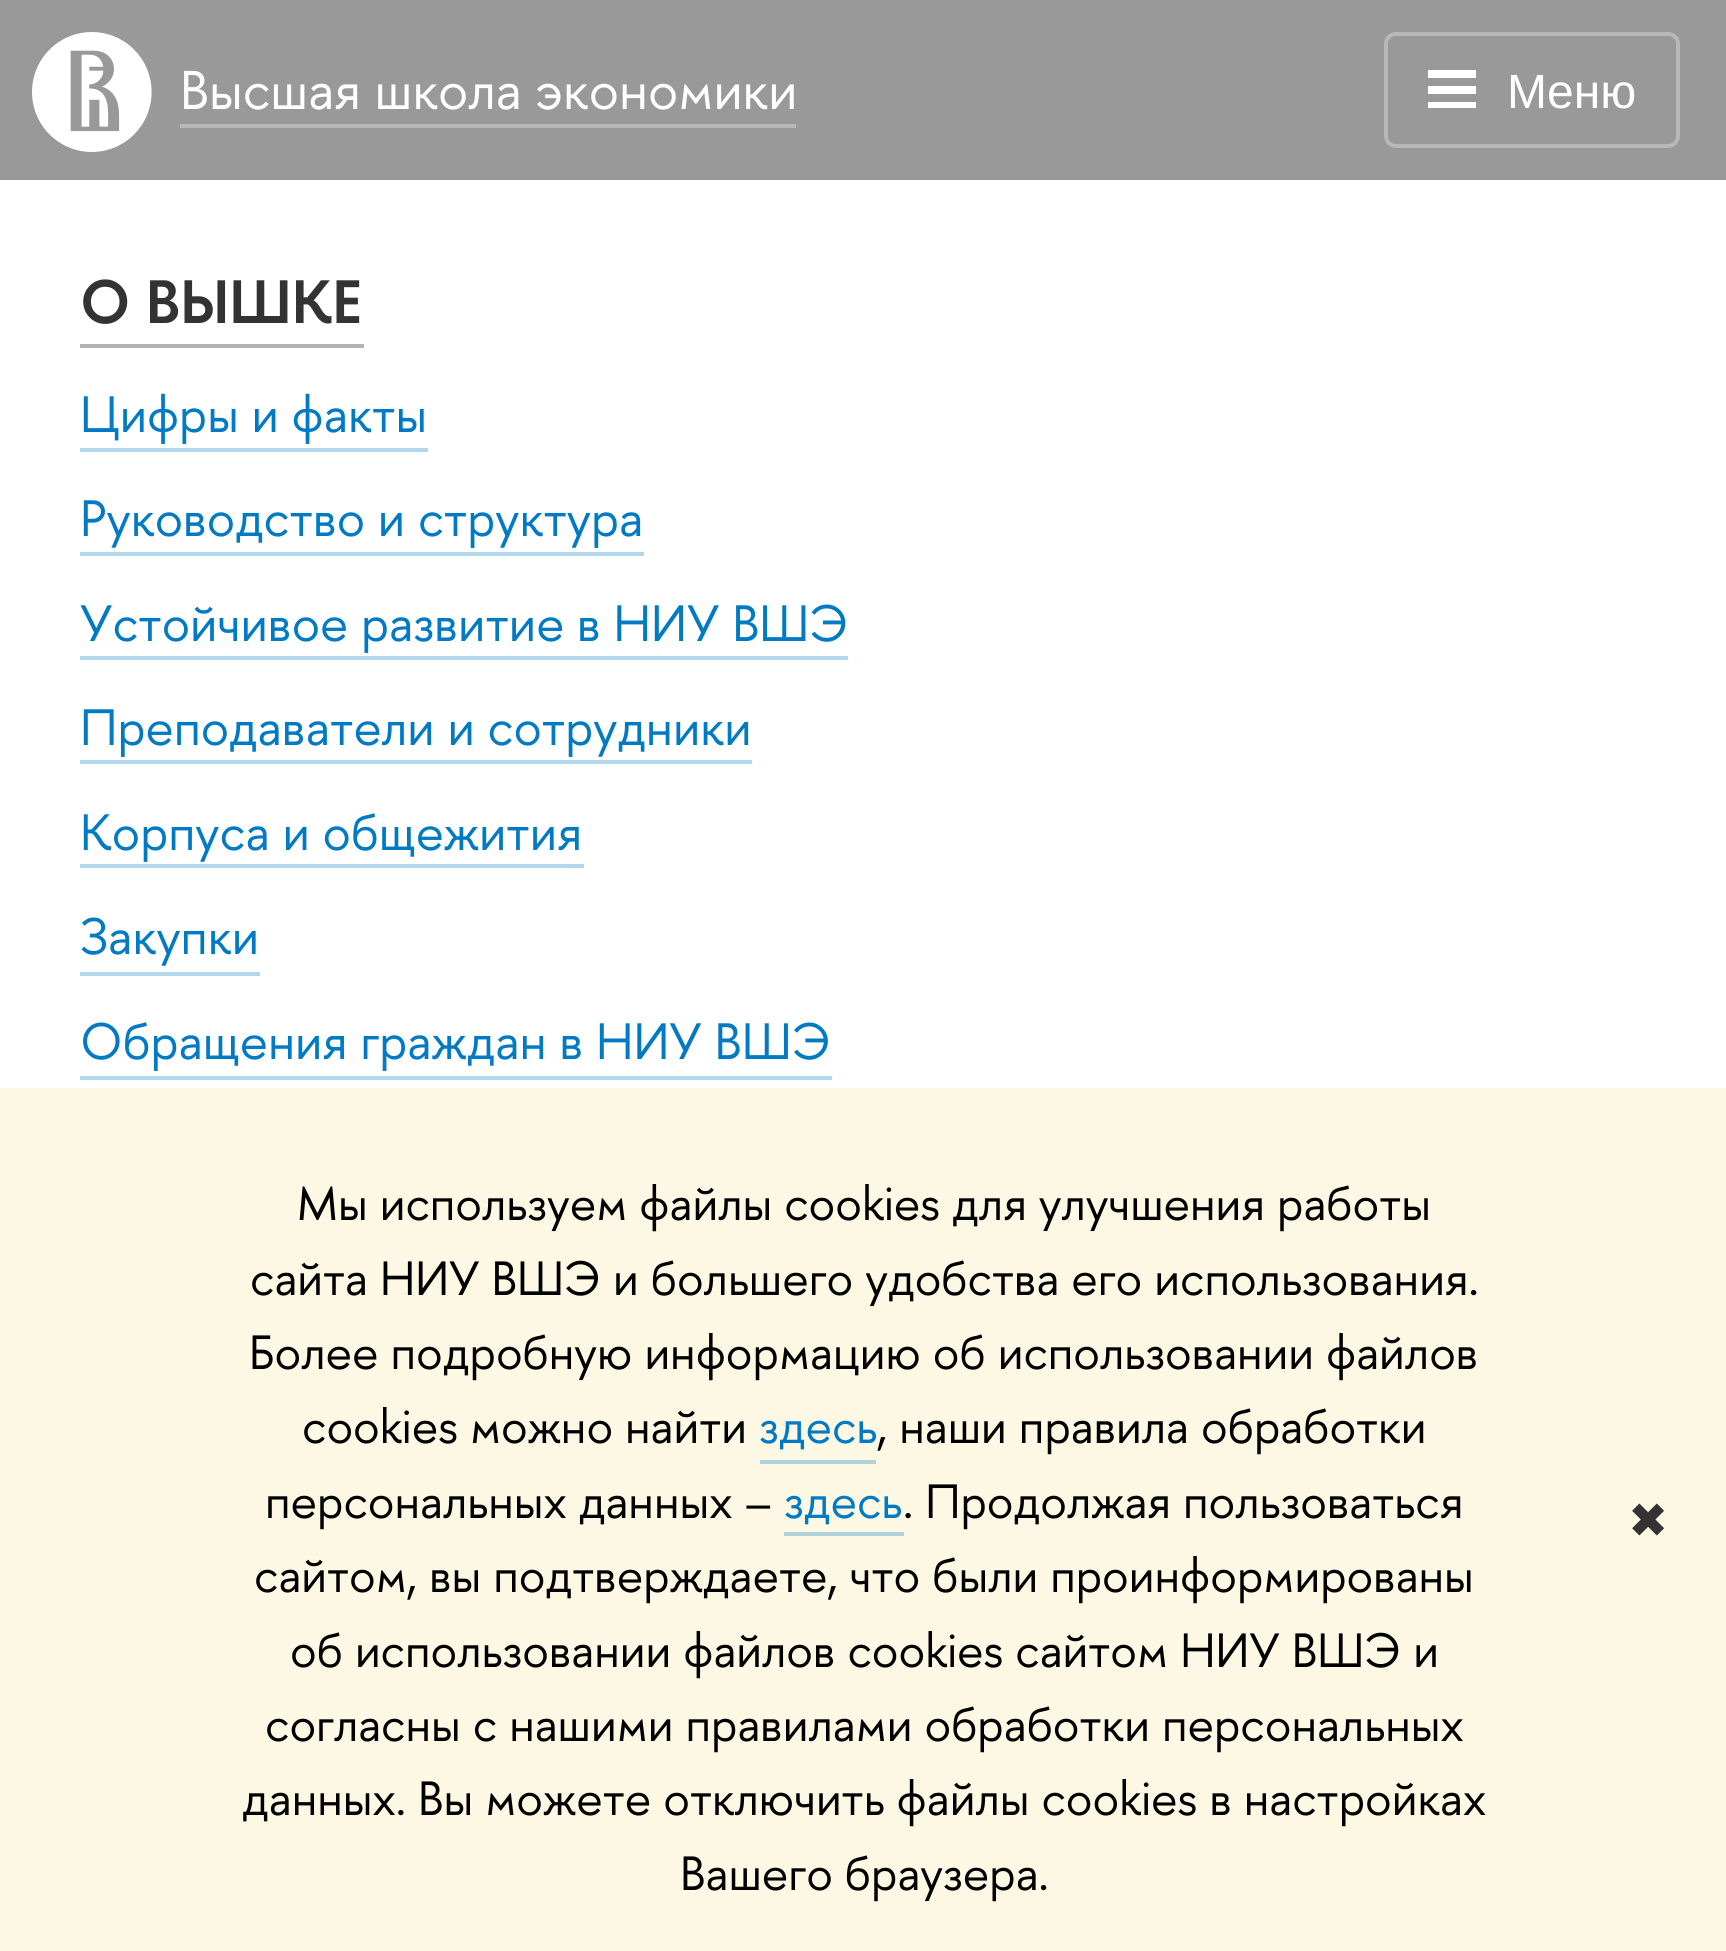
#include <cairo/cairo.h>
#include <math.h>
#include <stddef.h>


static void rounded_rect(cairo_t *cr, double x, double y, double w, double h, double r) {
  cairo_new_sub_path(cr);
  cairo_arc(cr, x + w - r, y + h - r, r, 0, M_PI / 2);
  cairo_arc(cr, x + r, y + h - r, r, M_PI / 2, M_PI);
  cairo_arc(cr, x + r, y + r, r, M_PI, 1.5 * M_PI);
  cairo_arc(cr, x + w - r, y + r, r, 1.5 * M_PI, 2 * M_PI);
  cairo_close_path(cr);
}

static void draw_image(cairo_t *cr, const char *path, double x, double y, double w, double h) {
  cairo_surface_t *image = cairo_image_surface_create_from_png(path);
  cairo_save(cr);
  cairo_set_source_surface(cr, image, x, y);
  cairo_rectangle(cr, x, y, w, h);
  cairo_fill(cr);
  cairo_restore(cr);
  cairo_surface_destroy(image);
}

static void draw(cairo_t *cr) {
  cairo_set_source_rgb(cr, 1, 1, 1);
  cairo_paint(cr);
  cairo_set_source_rgb(cr, 153 / 255.0, 153 / 255.0, 153 / 255.0);
  cairo_rectangle(cr, 0, 0, 1726, 180);
  cairo_fill(cr);
  draw_image(cr, "images/1.png", 32, 32, 120, 120);
  cairo_set_source_rgb(cr, 184 / 255.0, 184 / 255.0, 184 / 255.0);
  cairo_rectangle(cr, 180, 124, 616, 4);
  cairo_fill(cr);
  rounded_rect(cr, 1386, 34, 292, 112, 10);
  cairo_set_line_width(cr, 4);
  cairo_stroke(cr);
  cairo_set_source_rgb(cr, 1, 1, 1);
  cairo_rectangle(cr, 1428, 70, 48, 8);
  cairo_fill(cr);
  cairo_rectangle(cr, 1428, 86, 48, 8);
  cairo_fill(cr);
  cairo_rectangle(cr, 1428, 102, 48, 6);
  cairo_fill(cr);
  cairo_set_source_rgb(cr, 179 / 255.0, 179 / 255.0, 179 / 255.0);
  cairo_rectangle(cr, 80, 344, 284, 4);
  cairo_fill(cr);
  cairo_set_source_rgb(cr, 179 / 255.0, 215 / 255.0, 238 / 255.0);
  cairo_rectangle(cr, 80, 448, 348, 4);
  cairo_fill(cr);
  cairo_rectangle(cr, 80, 552, 564, 4);
  cairo_fill(cr);
  cairo_rectangle(cr, 80, 656, 768, 4);
  cairo_fill(cr);
  cairo_rectangle(cr, 80, 760, 672, 4);
  cairo_fill(cr);
  cairo_rectangle(cr, 80, 864, 504, 4);
  cairo_fill(cr);
  cairo_rectangle(cr, 80, 972, 180, 4);
  cairo_fill(cr);
  cairo_rectangle(cr, 80, 1076, 752, 4);
  cairo_fill(cr);
  cairo_set_source_rgb(cr, 252 / 255.0, 248 / 255.0, 227 / 255.0);
  cairo_rectangle(cr, 0, 1088, 1726, 863);
  cairo_fill(cr);
  cairo_set_source_rgb(cr, 176 / 255.0, 210 / 255.0, 218 / 255.0);
  cairo_rectangle(cr, 760, 1460, 116, 4);
  cairo_fill(cr);
  cairo_rectangle(cr, 784, 1532, 120, 4);
  cairo_fill(cr);
  cairo_select_font_face(cr, "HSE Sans", CAIRO_FONT_SLANT_NORMAL, CAIRO_FONT_WEIGHT_NORMAL);
  cairo_set_font_size(cr, 54.4);
  cairo_set_source_rgb(cr, 1, 1, 1);
  cairo_move_to(cr, 180, 109);
  cairo_show_text(cr, "Высшая школа экономики");
  cairo_select_font_face(cr, "Liberation Sans", CAIRO_FONT_SLANT_NORMAL, CAIRO_FONT_WEIGHT_NORMAL);
  cairo_set_font_size(cr, 48);
  cairo_move_to(cr, 1507, 108);
  cairo_show_text(cr, "Меню");
  cairo_select_font_face(cr, "HSE Sans SemiBold", CAIRO_FONT_SLANT_NORMAL, CAIRO_FONT_WEIGHT_NORMAL);
  cairo_set_font_size(cr, 61);
  cairo_set_source_rgb(cr, 51 / 255.0, 51 / 255.0, 51 / 255.0);
  cairo_move_to(cr, 80, 323);
  cairo_show_text(cr, "О ВЫШКЕ");
  cairo_select_font_face(cr, "HSE Sans", CAIRO_FONT_SLANT_NORMAL, CAIRO_FONT_WEIGHT_NORMAL);
  cairo_set_font_size(cr, 51);
  cairo_set_source_rgb(cr, 0, 122 / 255.0, 197 / 255.0);
  cairo_move_to(cr, 80, 432);
  cairo_show_text(cr, "Цифры и факты");
  cairo_move_to(cr, 80, 536);
  cairo_show_text(cr, "Руководство и структура");
  cairo_move_to(cr, 80, 641);
  cairo_show_text(cr, "Устойчивое развитие в НИУ ВШЭ");
  cairo_move_to(cr, 80, 745);
  cairo_show_text(cr, "Преподаватели и сотрудники");
  cairo_move_to(cr, 80, 850);
  cairo_show_text(cr, "Корпуса и общежития");
  cairo_move_to(cr, 80, 954);
  cairo_show_text(cr, "Закупки");
  cairo_move_to(cr, 80, 1059);
  cairo_show_text(cr, "Обращения граждан в НИУ ВШЭ");
  cairo_set_font_size(cr, 48);
  cairo_set_source_rgb(cr, 0, 0, 0);
  cairo_move_to(cr, 297, 1220);
  cairo_show_text(cr, "Мы используем файлы cookies для улучшения работы");
  cairo_move_to(cr, 250, 1295);
  cairo_show_text(cr, "сайта НИУ ВШЭ и большего удобства его использования.");
  cairo_move_to(cr, 249, 1369);
  cairo_show_text(cr, "Более подробную информацию об использовании файлов");
  cairo_move_to(cr, 302, 1443);
  cairo_show_text(cr, "cookies можно найти");
  cairo_set_source_rgb(cr, 0, 122 / 255.0, 197 / 255.0);
  cairo_move_to(cr, 759, 1443);
  cairo_show_text(cr, "здесь");
  cairo_set_source_rgb(cr, 0, 0, 0);
  cairo_move_to(cr, 877, 1443);
  cairo_show_text(cr, ", наши правила обработки");
  cairo_move_to(cr, 265, 1518);
  cairo_show_text(cr, "персональных данных –");
  cairo_set_source_rgb(cr, 0, 122 / 255.0, 197 / 255.0);
  cairo_move_to(cr, 784, 1518);
  cairo_show_text(cr, "здесь");
  cairo_set_source_rgb(cr, 0, 0, 0);
  cairo_move_to(cr, 903, 1518);
  cairo_show_text(cr, ". Продолжая пользоваться");
  cairo_move_to(cr, 254, 1592);
  cairo_show_text(cr, "сайтом, вы подтверждаете, что были проинформированы");
  cairo_move_to(cr, 290, 1667);
  cairo_show_text(cr, "об использовании файлов cookies сайтом НИУ ВШЭ и");
  cairo_move_to(cr, 265, 1741);
  cairo_show_text(cr, "согласны с нашими правилами обработки персональных");
  cairo_move_to(cr, 242, 1815);
  cairo_show_text(cr, "данных. Вы можете отключить файлы cookies в настройках");
  cairo_move_to(cr, 680, 1890);
  cairo_show_text(cr, "Вашего браузера.");
  cairo_select_font_face(cr, "DejaVu Sans", CAIRO_FONT_SLANT_NORMAL, CAIRO_FONT_WEIGHT_NORMAL);
  cairo_set_source_rgb(cr, 51 / 255.0, 51 / 255.0, 51 / 255.0);
  cairo_move_to(cr, 1628, 1537);
  cairo_show_text(cr, "✖");
}

int main(void) {
  cairo_surface_t *surface = cairo_image_surface_create(CAIRO_FORMAT_RGB24, 1726, 1951);
  cairo_t *cr = cairo_create(surface);
  cairo_font_options_t *options = cairo_font_options_create();
  cairo_font_options_set_hint_metrics(options, CAIRO_HINT_METRICS_OFF);
  cairo_font_options_set_hint_style(options, CAIRO_HINT_STYLE_NONE);
  cairo_set_font_options(cr, options);
  cairo_set_miter_limit(cr, 4);
  draw(cr);
  cairo_surface_write_to_png(surface, "out.png");
  cairo_font_options_destroy(options);
  cairo_destroy(cr);
  cairo_surface_destroy(surface);
  return 0;
}
